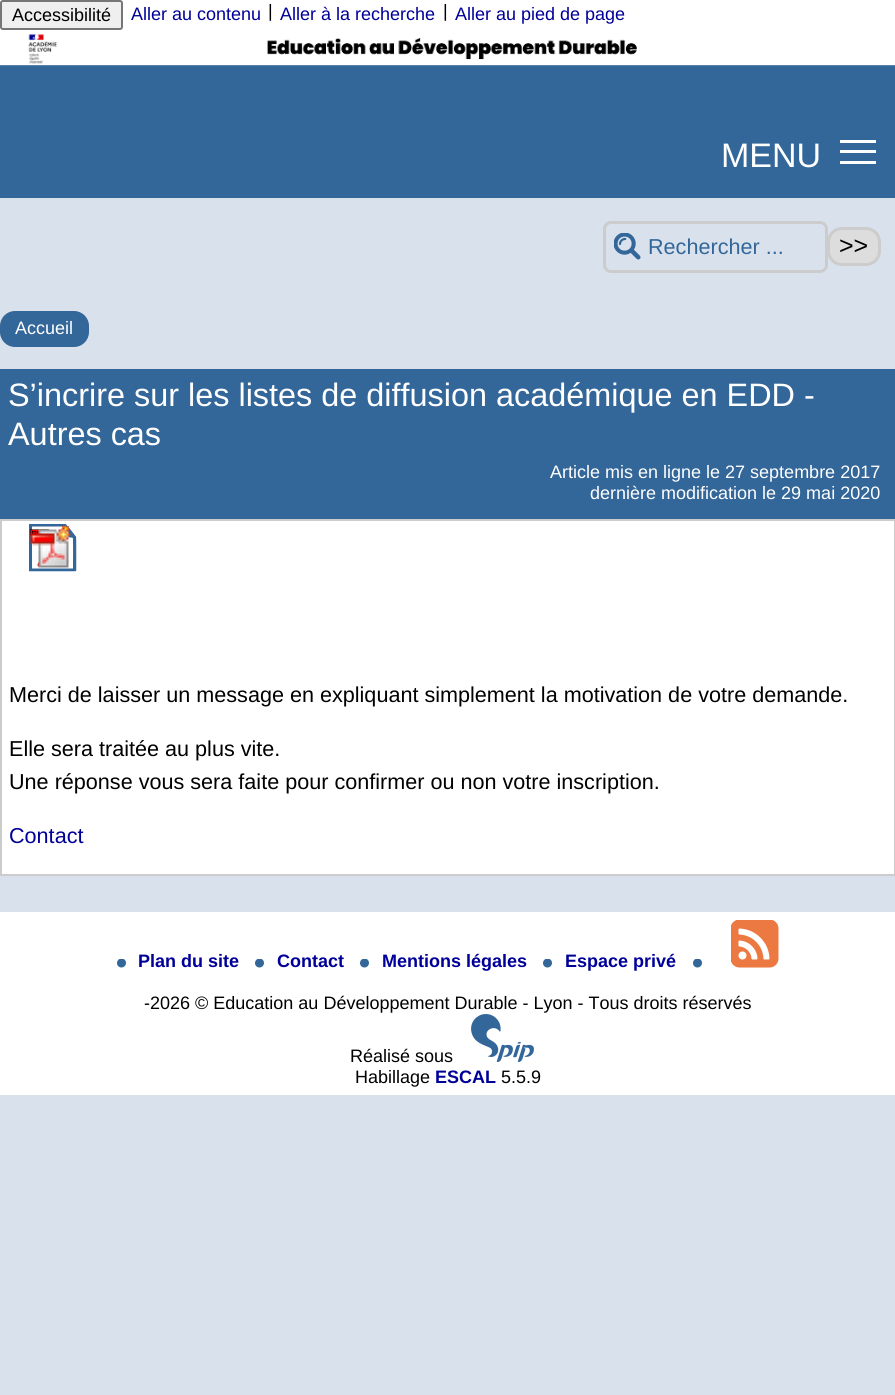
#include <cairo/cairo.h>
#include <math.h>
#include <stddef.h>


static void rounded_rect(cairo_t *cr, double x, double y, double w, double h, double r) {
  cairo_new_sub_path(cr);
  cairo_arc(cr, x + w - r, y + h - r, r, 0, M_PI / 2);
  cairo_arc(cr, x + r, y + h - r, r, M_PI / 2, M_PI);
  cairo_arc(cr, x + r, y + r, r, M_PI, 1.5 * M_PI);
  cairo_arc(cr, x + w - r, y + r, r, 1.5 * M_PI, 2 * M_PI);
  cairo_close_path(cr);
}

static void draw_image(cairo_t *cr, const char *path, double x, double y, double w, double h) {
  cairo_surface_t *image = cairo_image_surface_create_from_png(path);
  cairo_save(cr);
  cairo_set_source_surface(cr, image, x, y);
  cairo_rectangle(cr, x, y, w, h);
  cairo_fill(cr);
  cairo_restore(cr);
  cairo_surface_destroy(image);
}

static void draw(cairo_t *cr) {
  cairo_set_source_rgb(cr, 217 / 255.0, 226 / 255.0, 236 / 255.0);
  cairo_paint(cr);
  cairo_set_source_rgb(cr, 51 / 255.0, 102 / 255.0, 153 / 255.0);
  cairo_rectangle(cr, 0, 65, 895, 133);
  cairo_fill(cr);
  cairo_set_source_rgb(cr, 1, 1, 1);
  cairo_rectangle(cr, 0, 0, 895, 30);
  cairo_fill(cr);
  cairo_set_source_rgb(cr, 239 / 255.0, 239 / 255.0, 239 / 255.0);
  rounded_rect(cr, 1, 1, 121, 28, 2);
  cairo_fill_preserve(cr);
  cairo_set_source_rgb(cr, 118 / 255.0, 118 / 255.0, 118 / 255.0);
  cairo_stroke(cr);
  draw_image(cr, "images/1.png", 0, 30, 895, 36);
  cairo_set_source_rgb(cr, 1, 1, 1);
  cairo_rectangle(cr, 840, 150, 36, 3);
  cairo_fill(cr);
  cairo_rectangle(cr, 840, 140, 36, 3);
  cairo_fill(cr);
  cairo_rectangle(cr, 840, 161, 36, 3);
  cairo_fill(cr);
  draw_image(cr, "images/2.png", 614, 233, 27, 27);
  rounded_rect(cr, 604.5, 222.5, 222, 49, 6.5);
  cairo_set_source_rgb(cr, 204 / 255.0, 204 / 255.0, 204 / 255.0);
  cairo_set_line_width(cr, 3);
  cairo_stroke(cr);
  cairo_set_source_rgb(cr, 221 / 255.0, 221 / 255.0, 221 / 255.0);
  rounded_rect(cr, 828.5, 228.5, 51, 36, 13.5);
  cairo_fill_preserve(cr);
  cairo_set_source_rgb(cr, 204 / 255.0, 204 / 255.0, 204 / 255.0);
  cairo_stroke(cr);
  cairo_set_source_rgb(cr, 51 / 255.0, 102 / 255.0, 153 / 255.0);
  rounded_rect(cr, 0, 311, 89, 36, 15);
  cairo_fill(cr);
  cairo_rectangle(cr, 0, 369, 895, 150);
  cairo_fill(cr);
  cairo_set_source_rgb(cr, 1, 1, 1);
  cairo_rectangle(cr, 1, 520, 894, 355);
  cairo_fill_preserve(cr);
  cairo_set_source_rgb(cr, 204 / 255.0, 204 / 255.0, 204 / 255.0);
  cairo_set_line_width(cr, 2);
  cairo_stroke(cr);
  draw_image(cr, "images/3.png", 29, 524, 48, 48);
  draw_image(cr, "images/4.png", 30, 527, 41, 41);
  cairo_set_source_rgb(cr, 1, 1, 1);
  cairo_rectangle(cr, 0, 912, 895, 183);
  cairo_fill(cr);
  draw_image(cr, "images/5.png", 117, 959, 9, 9);
  draw_image(cr, "images/5.png", 255, 959, 9, 9);
  draw_image(cr, "images/5.png", 360, 959, 9, 9);
  draw_image(cr, "images/5.png", 543, 959, 9, 9);
  draw_image(cr, "images/5.png", 693, 959, 9, 9);
  draw_image(cr, "images/6.png", 731, 920, 48, 48);
  draw_image(cr, "images/7.png", 471, 1014, 63, 48);
  cairo_select_font_face(cr, "Liberation Sans", CAIRO_FONT_SLANT_NORMAL, CAIRO_FONT_WEIGHT_NORMAL);
  cairo_set_font_size(cr, 18);
  cairo_set_source_rgb(cr, 0, 0, 0);
  cairo_move_to(cr, 12, 21);
  cairo_show_text(cr, "Accessibilité");
  cairo_set_source_rgb(cr, 0, 0, 153 / 255.0);
  cairo_move_to(cr, 131, 20);
  cairo_show_text(cr, "Aller au contenu");
  cairo_set_source_rgb(cr, 0, 0, 0);
  cairo_move_to(cr, 268, 17);
  cairo_show_text(cr, "|");
  cairo_set_source_rgb(cr, 0, 0, 153 / 255.0);
  cairo_move_to(cr, 280, 20);
  cairo_show_text(cr, "Aller à la recherche");
  cairo_set_source_rgb(cr, 0, 0, 0);
  cairo_move_to(cr, 443, 17);
  cairo_show_text(cr, "|");
  cairo_set_source_rgb(cr, 0, 0, 153 / 255.0);
  cairo_move_to(cr, 455, 20);
  cairo_show_text(cr, "Aller au pied de page");
  cairo_set_font_size(cr, 34);
  cairo_set_source_rgb(cr, 1, 1, 1);
  cairo_move_to(cr, 721, 167);
  cairo_show_text(cr, "MENU");
  cairo_set_font_size(cr, 21.6);
  cairo_set_source_rgb(cr, 51 / 255.0, 102 / 255.0, 153 / 255.0);
  cairo_move_to(cr, 648, 254);
  cairo_show_text(cr, "Rechercher ...");
  cairo_set_font_size(cr, 25);
  cairo_set_source_rgb(cr, 0, 0, 0);
  cairo_move_to(cr, 839, 254);
  cairo_show_text(cr, ">>");
  cairo_set_font_size(cr, 18);
  cairo_set_source_rgb(cr, 1, 1, 1);
  cairo_move_to(cr, 15, 334);
  cairo_show_text(cr, "Accueil");
  cairo_set_font_size(cr, 32.4);
  cairo_move_to(cr, 8, 406);
  cairo_show_text(cr, "S’incrire sur les listes de diffusion académique en EDD -");
  cairo_move_to(cr, 8, 445);
  cairo_show_text(cr, "Autres cas");
  cairo_set_font_size(cr, 18);
  cairo_move_to(cr, 550, 478);
  cairo_show_text(cr, "Article mis en ligne le 27 septembre 2017");
  cairo_move_to(cr, 590, 499);
  cairo_show_text(cr, "dernière modification le 29 mai 2020");
  cairo_set_font_size(cr, 21.6);
  cairo_set_source_rgb(cr, 0, 0, 0);
  cairo_move_to(cr, 9, 702);
  cairo_show_text(cr, "Merci de laisser un message en expliquant simplement la motivation de votre demande.");
  cairo_move_to(cr, 9, 756);
  cairo_show_text(cr, "Elle sera traitée au plus vite.");
  cairo_move_to(cr, 9, 789);
  cairo_show_text(cr, "Une réponse vous sera faite pour confirmer ou non votre inscription.");
  cairo_set_source_rgb(cr, 0, 0, 153 / 255.0);
  cairo_move_to(cr, 9, 843);
  cairo_show_text(cr, "Contact");
  cairo_select_font_face(cr, "Liberation Sans", CAIRO_FONT_SLANT_NORMAL, CAIRO_FONT_WEIGHT_BOLD);
  cairo_set_font_size(cr, 18);
  cairo_move_to(cr, 138, 967);
  cairo_show_text(cr, "Plan du site");
  cairo_move_to(cr, 277, 967);
  cairo_show_text(cr, "Contact");
  cairo_move_to(cr, 382, 967);
  cairo_show_text(cr, "Mentions légales");
  cairo_move_to(cr, 565, 967);
  cairo_show_text(cr, "Espace privé");
  cairo_select_font_face(cr, "Liberation Sans", CAIRO_FONT_SLANT_NORMAL, CAIRO_FONT_WEIGHT_NORMAL);
  cairo_set_source_rgb(cr, 0, 0, 0);
  cairo_move_to(cr, 144, 1009);
  cairo_show_text(cr, "-2026 © Education au Développement Durable - Lyon - Tous droits réservés");
  cairo_move_to(cr, 350, 1062);
  cairo_show_text(cr, "Réalisé sous");
  cairo_move_to(cr, 355, 1083);
  cairo_show_text(cr, "Habillage");
  cairo_select_font_face(cr, "Liberation Sans", CAIRO_FONT_SLANT_NORMAL, CAIRO_FONT_WEIGHT_BOLD);
  cairo_set_source_rgb(cr, 0, 0, 153 / 255.0);
  cairo_move_to(cr, 435, 1083);
  cairo_show_text(cr, "ESCAL");
  cairo_select_font_face(cr, "Liberation Sans", CAIRO_FONT_SLANT_NORMAL, CAIRO_FONT_WEIGHT_NORMAL);
  cairo_set_source_rgb(cr, 0, 0, 0);
  cairo_move_to(cr, 501, 1083);
  cairo_show_text(cr, "5.5.9");
}

int main(void) {
  cairo_surface_t *surface = cairo_image_surface_create(CAIRO_FORMAT_RGB24, 895, 1395);
  cairo_t *cr = cairo_create(surface);
  cairo_font_options_t *options = cairo_font_options_create();
  cairo_font_options_set_hint_metrics(options, CAIRO_HINT_METRICS_OFF);
  cairo_font_options_set_hint_style(options, CAIRO_HINT_STYLE_NONE);
  cairo_set_font_options(cr, options);
  cairo_set_miter_limit(cr, 4);
  draw(cr);
  cairo_surface_write_to_png(surface, "out.png");
  cairo_font_options_destroy(options);
  cairo_destroy(cr);
  cairo_surface_destroy(surface);
  return 0;
}
